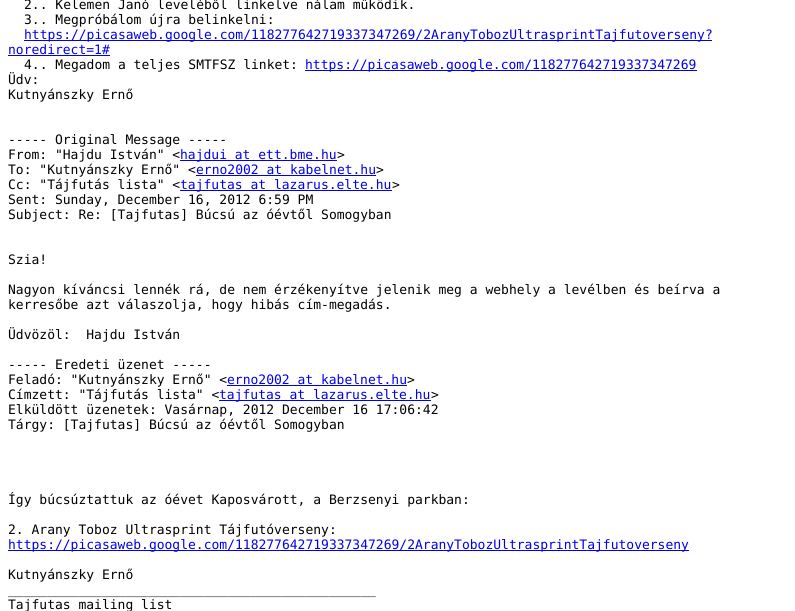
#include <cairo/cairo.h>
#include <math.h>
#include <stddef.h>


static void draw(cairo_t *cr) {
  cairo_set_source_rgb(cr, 1, 1, 1);
  cairo_paint(cr);
  cairo_set_source_rgb(cr, 0, 0, 238 / 255.0);
  cairo_rectangle(cr, 24, 40, 688, 1);
  cairo_fill(cr);
  cairo_rectangle(cr, 8, 55, 102, 1);
  cairo_fill(cr);
  cairo_rectangle(cr, 305, 70, 392, 1);
  cairo_fill(cr);
  cairo_rectangle(cr, 180, 160, 157, 1);
  cairo_fill(cr);
  cairo_rectangle(cr, 196, 175, 180, 1);
  cairo_fill(cr);
  cairo_rectangle(cr, 180, 190, 212, 1);
  cairo_fill(cr);
  cairo_rectangle(cr, 227, 385, 180, 1);
  cairo_fill(cr);
  cairo_rectangle(cr, 219, 400, 212, 1);
  cairo_fill(cr);
  cairo_rectangle(cr, 8, 550, 681, 1);
  cairo_fill(cr);
  cairo_select_font_face(cr, "DejaVu Sans Mono", CAIRO_FONT_SLANT_NORMAL, CAIRO_FONT_WEIGHT_NORMAL);
  cairo_set_font_size(cr, 13);
  cairo_set_source_rgb(cr, 0, 0, 0);
  cairo_move_to(cr, 24, 9);
  cairo_show_text(cr, "2.. Kelemen Janó leveléből linkelve nálam működik.");
  cairo_move_to(cr, 24, 24);
  cairo_show_text(cr, "3.. Megpróbálom újra belinkelni:");
  cairo_set_source_rgb(cr, 0, 0, 238 / 255.0);
  cairo_move_to(cr, 24, 39);
  cairo_show_text(cr, "https://picasaweb.google.com/118277642719337347269/2AranyTobozUltrasprintTajfutoverseny?");
  cairo_move_to(cr, 8, 54);
  cairo_show_text(cr, "noredirect=1#");
  cairo_set_source_rgb(cr, 0, 0, 0);
  cairo_move_to(cr, 24, 69);
  cairo_show_text(cr, "4.. Megadom a teljes SMTFSZ linket:");
  cairo_set_source_rgb(cr, 0, 0, 238 / 255.0);
  cairo_move_to(cr, 305, 69);
  cairo_show_text(cr, "https://picasaweb.google.com/118277642719337347269");
  cairo_set_source_rgb(cr, 0, 0, 0);
  cairo_move_to(cr, 8, 84);
  cairo_show_text(cr, "Üdv:");
  cairo_move_to(cr, 8, 99);
  cairo_show_text(cr, "Kutnyánszky Ernő");
  cairo_move_to(cr, 8, 144);
  cairo_show_text(cr, "----- Original Message -----");
  cairo_move_to(cr, 8, 159);
  cairo_show_text(cr, "From: \"Hajdu István\" <");
  cairo_set_source_rgb(cr, 0, 0, 238 / 255.0);
  cairo_move_to(cr, 180, 159);
  cairo_show_text(cr, "hajdui at ett.bme.hu");
  cairo_set_source_rgb(cr, 0, 0, 0);
  cairo_move_to(cr, 337, 159);
  cairo_show_text(cr, ">");
  cairo_move_to(cr, 8, 174);
  cairo_show_text(cr, "To: \"Kutnyánszky Ernő\" <");
  cairo_set_source_rgb(cr, 0, 0, 238 / 255.0);
  cairo_move_to(cr, 196, 174);
  cairo_show_text(cr, "erno2002 at kabelnet.hu");
  cairo_set_source_rgb(cr, 0, 0, 0);
  cairo_move_to(cr, 376, 174);
  cairo_show_text(cr, ">");
  cairo_move_to(cr, 8, 189);
  cairo_show_text(cr, "Cc: \"Tájfutás lista\" <");
  cairo_set_source_rgb(cr, 0, 0, 238 / 255.0);
  cairo_move_to(cr, 180, 189);
  cairo_show_text(cr, "tajfutas at lazarus.elte.hu");
  cairo_set_source_rgb(cr, 0, 0, 0);
  cairo_move_to(cr, 392, 189);
  cairo_show_text(cr, ">");
  cairo_move_to(cr, 8, 204);
  cairo_show_text(cr, "Sent: Sunday, December 16, 2012 6:59 PM");
  cairo_move_to(cr, 8, 219);
  cairo_show_text(cr, "Subject: Re: [Tajfutas] Búcsú az óévtől Somogyban");
  cairo_move_to(cr, 8, 264);
  cairo_show_text(cr, "Szia!");
  cairo_move_to(cr, 8, 294);
  cairo_show_text(cr, "Nagyon kíváncsi lennék rá, de nem érzékenyítve jelenik meg a webhely a levélben és beírva a");
  cairo_move_to(cr, 8, 309);
  cairo_show_text(cr, "kerresőbe azt válaszolja, hogy hibás cím-megadás.");
  cairo_move_to(cr, 8, 339);
  cairo_show_text(cr, "Üdvözöl:  Hajdu István");
  cairo_move_to(cr, 8, 369);
  cairo_show_text(cr, "----- Eredeti üzenet -----");
  cairo_move_to(cr, 8, 384);
  cairo_show_text(cr, "Feladó: \"Kutnyánszky Ernő\" <");
  cairo_set_source_rgb(cr, 0, 0, 238 / 255.0);
  cairo_move_to(cr, 227, 384);
  cairo_show_text(cr, "erno2002 at kabelnet.hu");
  cairo_set_source_rgb(cr, 0, 0, 0);
  cairo_move_to(cr, 407, 384);
  cairo_show_text(cr, ">");
  cairo_move_to(cr, 8, 399);
  cairo_show_text(cr, "Címzett: \"Tájfutás lista\" <");
  cairo_set_source_rgb(cr, 0, 0, 238 / 255.0);
  cairo_move_to(cr, 219, 399);
  cairo_show_text(cr, "tajfutas at lazarus.elte.hu");
  cairo_set_source_rgb(cr, 0, 0, 0);
  cairo_move_to(cr, 431, 399);
  cairo_show_text(cr, ">");
  cairo_move_to(cr, 8, 414);
  cairo_show_text(cr, "Elküldött üzenetek: Vasárnap, 2012 December 16 17:06:42");
  cairo_move_to(cr, 8, 429);
  cairo_show_text(cr, "Tárgy: [Tajfutas] Búcsú az óévtől Somogyban");
  cairo_move_to(cr, 8, 504);
  cairo_show_text(cr, "Így búcsúztattuk az óévet Kaposvárott, a Berzsenyi parkban:");
  cairo_move_to(cr, 8, 534);
  cairo_show_text(cr, "2. Arany Toboz Ultrasprint Tájfutóverseny:");
  cairo_set_source_rgb(cr, 0, 0, 238 / 255.0);
  cairo_move_to(cr, 8, 549);
  cairo_show_text(cr, "https://picasaweb.google.com/118277642719337347269/2AranyTobozUltrasprintTajfutoverseny");
  cairo_set_source_rgb(cr, 0, 0, 0);
  cairo_move_to(cr, 8, 579);
  cairo_show_text(cr, "Kutnyánszky Ernő");
  cairo_move_to(cr, 8, 594);
  cairo_show_text(cr, "_______________________________________________");
  cairo_move_to(cr, 8, 609);
  cairo_show_text(cr, "Tajfutas mailing list");
}

int main(void) {
  cairo_surface_t *surface = cairo_image_surface_create(CAIRO_FORMAT_RGB24, 795, 611);
  cairo_t *cr = cairo_create(surface);
  cairo_font_options_t *options = cairo_font_options_create();
  cairo_font_options_set_hint_metrics(options, CAIRO_HINT_METRICS_OFF);
  cairo_font_options_set_hint_style(options, CAIRO_HINT_STYLE_NONE);
  cairo_set_font_options(cr, options);
  cairo_set_miter_limit(cr, 4);
  draw(cr);
  cairo_surface_write_to_png(surface, "out.png");
  cairo_font_options_destroy(options);
  cairo_destroy(cr);
  cairo_surface_destroy(surface);
  return 0;
}
